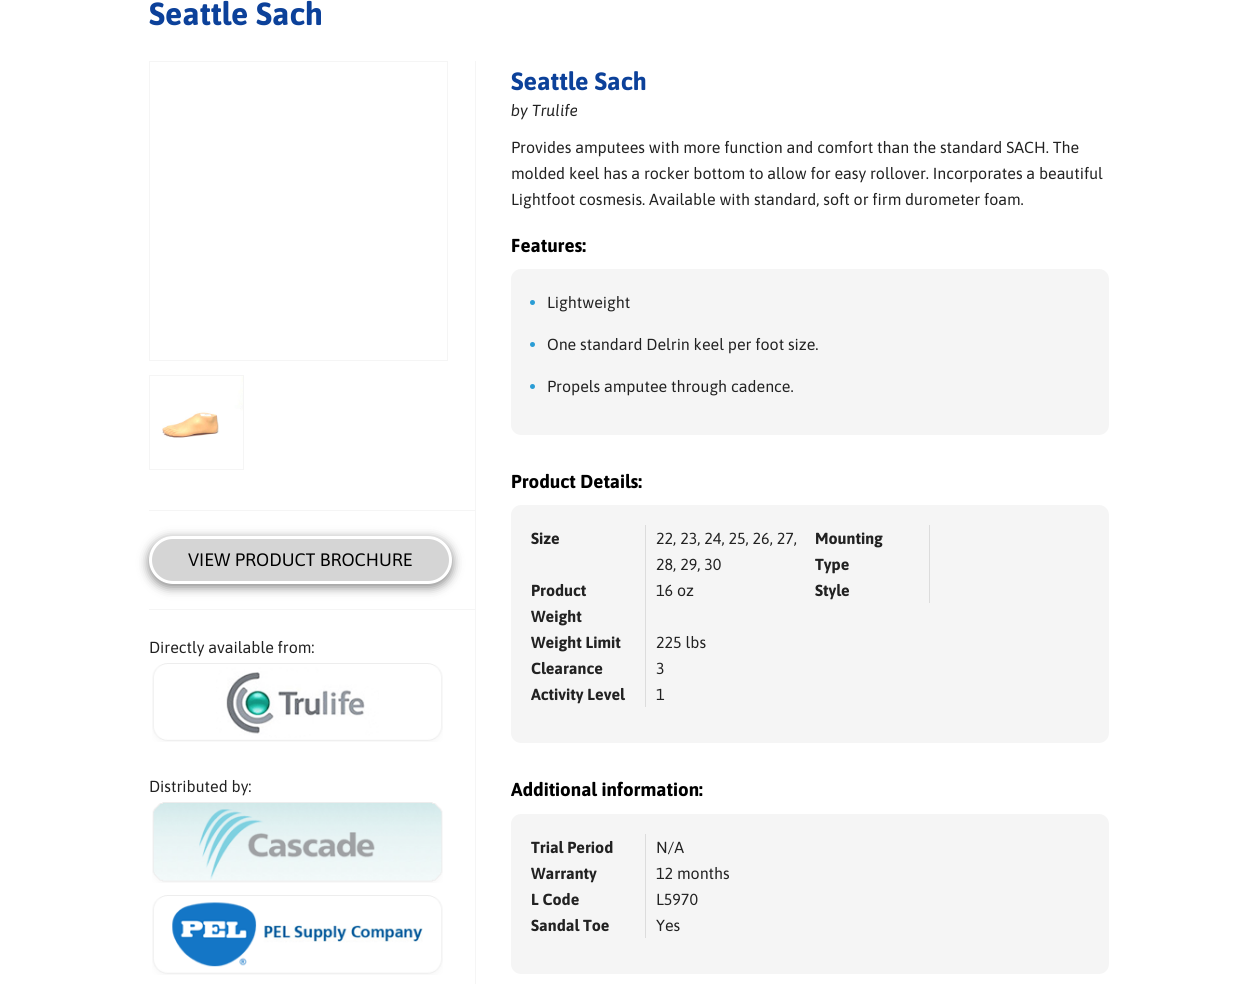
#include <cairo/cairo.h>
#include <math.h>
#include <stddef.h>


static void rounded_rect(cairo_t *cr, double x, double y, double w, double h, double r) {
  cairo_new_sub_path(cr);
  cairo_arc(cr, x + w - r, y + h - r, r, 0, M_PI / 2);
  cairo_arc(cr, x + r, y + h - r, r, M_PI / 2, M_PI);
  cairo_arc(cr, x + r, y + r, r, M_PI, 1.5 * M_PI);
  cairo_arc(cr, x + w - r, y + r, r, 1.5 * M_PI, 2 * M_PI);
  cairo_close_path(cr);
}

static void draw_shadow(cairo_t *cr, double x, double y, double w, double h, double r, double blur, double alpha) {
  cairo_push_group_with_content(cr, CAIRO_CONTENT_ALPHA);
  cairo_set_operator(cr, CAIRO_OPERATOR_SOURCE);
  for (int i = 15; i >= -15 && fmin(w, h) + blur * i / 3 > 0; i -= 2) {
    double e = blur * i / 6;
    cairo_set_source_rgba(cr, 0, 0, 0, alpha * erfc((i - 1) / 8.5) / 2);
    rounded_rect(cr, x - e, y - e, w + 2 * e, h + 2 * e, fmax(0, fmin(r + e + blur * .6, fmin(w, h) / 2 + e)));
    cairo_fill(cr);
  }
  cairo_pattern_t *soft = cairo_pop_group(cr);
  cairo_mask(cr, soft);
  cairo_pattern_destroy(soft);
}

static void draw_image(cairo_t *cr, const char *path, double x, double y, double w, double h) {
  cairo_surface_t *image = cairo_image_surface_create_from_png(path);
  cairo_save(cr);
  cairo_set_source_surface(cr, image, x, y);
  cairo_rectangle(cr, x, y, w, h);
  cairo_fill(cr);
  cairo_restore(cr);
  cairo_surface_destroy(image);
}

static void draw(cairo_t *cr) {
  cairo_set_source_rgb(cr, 1, 1, 1);
  cairo_paint(cr);
  cairo_rectangle(cr, 149.5, 61.5, 298, 299);
  cairo_set_source_rgb(cr, 245 / 255.0, 245 / 255.0, 245 / 255.0);
  cairo_set_line_width(cr, 1);
  cairo_stroke(cr);
  cairo_rectangle(cr, 149.5, 375.5, 94, 94);
  cairo_stroke(cr);
  draw_image(cr, "images/1.png", 162, 376, 81, 62);
  cairo_rectangle(cr, 475, 61, 1, 923);
  cairo_fill(cr);
  cairo_rectangle(cr, 149, 510, 327, 1);
  cairo_fill(cr);
  cairo_rectangle(cr, 149, 609, 327, 1);
  cairo_fill(cr);
  cairo_set_source_rgb(cr, 0, 0, 0);
  draw_shadow(cr, 149, 539, 303, 48, 24, 5.5, 0.5);
  cairo_set_source_rgb(cr, 213 / 255.0, 213 / 255.0, 213 / 255.0);
  rounded_rect(cr, 150.5, 537.5, 300, 45, 22.5);
  cairo_fill_preserve(cr);
  cairo_set_source_rgb(cr, 1, 1, 1);
  cairo_set_line_width(cr, 3);
  cairo_stroke(cr);
  draw_image(cr, "images/2.png", 152, 663, 291, 79);
  draw_image(cr, "images/3.png", 152, 802, 291, 81);
  draw_image(cr, "images/4.png", 152, 895, 291, 80);
  cairo_set_source_rgb(cr, 245 / 255.0, 245 / 255.0, 245 / 255.0);
  rounded_rect(cr, 511, 269, 598, 166, 10);
  cairo_fill(cr);
  cairo_set_source_rgb(cr, 43 / 255.0, 157 / 255.0, 213 / 255.0);
  cairo_arc(cr, 532.5, 302.5, 2.5, 0, 2 * M_PI);
  cairo_fill(cr);
  cairo_arc(cr, 532.5, 344.5, 2.5, 0, 2 * M_PI);
  cairo_fill(cr);
  cairo_arc(cr, 532.5, 386.5, 2.5, 0, 2 * M_PI);
  cairo_fill(cr);
  cairo_set_source_rgb(cr, 245 / 255.0, 245 / 255.0, 245 / 255.0);
  rounded_rect(cr, 511, 505, 598, 238, 10);
  cairo_fill(cr);
  cairo_set_source_rgb(cr, 220 / 255.0, 220 / 255.0, 220 / 255.0);
  cairo_rectangle(cr, 645, 525, 1, 182);
  cairo_fill(cr);
  cairo_rectangle(cr, 929, 525, 1, 78);
  cairo_fill(cr);
  cairo_set_source_rgb(cr, 245 / 255.0, 245 / 255.0, 245 / 255.0);
  rounded_rect(cr, 511, 814, 598, 160, 10);
  cairo_fill(cr);
  cairo_set_source_rgb(cr, 220 / 255.0, 220 / 255.0, 220 / 255.0);
  cairo_rectangle(cr, 645, 834, 1, 104);
  cairo_fill(cr);
  cairo_select_font_face(cr, "Asap", CAIRO_FONT_SLANT_NORMAL, CAIRO_FONT_WEIGHT_BOLD);
  cairo_set_font_size(cr, 32);
  cairo_set_source_rgb(cr, 12 / 255.0, 65 / 255.0, 154 / 255.0);
  cairo_move_to(cr, 149, 25);
  cairo_show_text(cr, "Seattle Sach");
  cairo_select_font_face(cr, "Asap", CAIRO_FONT_SLANT_NORMAL, CAIRO_FONT_WEIGHT_NORMAL);
  cairo_set_font_size(cr, 18);
  cairo_set_source_rgb(cr, 0, 0, 0);
  cairo_move_to(cr, 188, 566);
  cairo_show_text(cr, "VIEW PRODUCT BROCHURE");
  cairo_set_font_size(cr, 16);
  cairo_set_source_rgb(cr, 34 / 255.0, 34 / 255.0, 34 / 255.0);
  cairo_move_to(cr, 149, 653);
  cairo_show_text(cr, "Directly available from:");
  cairo_move_to(cr, 149, 792);
  cairo_show_text(cr, "Distributed by:");
  cairo_select_font_face(cr, "Asap", CAIRO_FONT_SLANT_NORMAL, CAIRO_FONT_WEIGHT_BOLD);
  cairo_set_font_size(cr, 25);
  cairo_set_source_rgb(cr, 12 / 255.0, 65 / 255.0, 154 / 255.0);
  cairo_move_to(cr, 511, 90);
  cairo_show_text(cr, "Seattle Sach");
  cairo_select_font_face(cr, "Asap", CAIRO_FONT_SLANT_ITALIC, CAIRO_FONT_WEIGHT_NORMAL);
  cairo_set_font_size(cr, 16);
  cairo_set_source_rgb(cr, 34 / 255.0, 34 / 255.0, 34 / 255.0);
  cairo_move_to(cr, 511, 116);
  cairo_show_text(cr, "by Trulife");
  cairo_select_font_face(cr, "Asap", CAIRO_FONT_SLANT_NORMAL, CAIRO_FONT_WEIGHT_NORMAL);
  cairo_move_to(cr, 511, 153);
  cairo_show_text(cr, "Provides amputees with more function and comfort than the standard SACH. The");
  cairo_move_to(cr, 511, 179);
  cairo_show_text(cr, "molded keel has a rocker bottom to allow for easy rollover. Incorporates a beautiful");
  cairo_move_to(cr, 511, 205);
  cairo_show_text(cr, "Lightfoot cosmesis. Available with standard, soft or firm durometer foam.");
  cairo_select_font_face(cr, "Asap", CAIRO_FONT_SLANT_NORMAL, CAIRO_FONT_WEIGHT_BOLD);
  cairo_set_font_size(cr, 18.75);
  cairo_set_source_rgb(cr, 0, 0, 0);
  cairo_move_to(cr, 511, 252);
  cairo_show_text(cr, "Features:");
  cairo_select_font_face(cr, "Asap", CAIRO_FONT_SLANT_NORMAL, CAIRO_FONT_WEIGHT_NORMAL);
  cairo_set_font_size(cr, 16);
  cairo_set_source_rgb(cr, 34 / 255.0, 34 / 255.0, 34 / 255.0);
  cairo_move_to(cr, 547, 308);
  cairo_show_text(cr, "Lightweight");
  cairo_move_to(cr, 547, 350);
  cairo_show_text(cr, "One standard Delrin keel per foot size.");
  cairo_move_to(cr, 547, 392);
  cairo_show_text(cr, "Propels amputee through cadence.");
  cairo_select_font_face(cr, "Asap", CAIRO_FONT_SLANT_NORMAL, CAIRO_FONT_WEIGHT_BOLD);
  cairo_set_font_size(cr, 18.75);
  cairo_set_source_rgb(cr, 0, 0, 0);
  cairo_move_to(cr, 511, 488);
  cairo_show_text(cr, "Product Details:");
  cairo_set_font_size(cr, 16);
  cairo_set_source_rgb(cr, 34 / 255.0, 34 / 255.0, 34 / 255.0);
  cairo_move_to(cr, 531, 544);
  cairo_show_text(cr, "Size");
  cairo_select_font_face(cr, "Asap", CAIRO_FONT_SLANT_NORMAL, CAIRO_FONT_WEIGHT_NORMAL);
  cairo_move_to(cr, 656, 544);
  cairo_show_text(cr, "22, 23, 24, 25, 26, 27,");
  cairo_move_to(cr, 656, 570);
  cairo_show_text(cr, "28, 29, 30");
  cairo_select_font_face(cr, "Asap", CAIRO_FONT_SLANT_NORMAL, CAIRO_FONT_WEIGHT_BOLD);
  cairo_move_to(cr, 531, 596);
  cairo_show_text(cr, "Product");
  cairo_move_to(cr, 531, 622);
  cairo_show_text(cr, "Weight");
  cairo_select_font_face(cr, "Asap", CAIRO_FONT_SLANT_NORMAL, CAIRO_FONT_WEIGHT_NORMAL);
  cairo_move_to(cr, 656, 596);
  cairo_show_text(cr, "16 oz");
  cairo_select_font_face(cr, "Asap", CAIRO_FONT_SLANT_NORMAL, CAIRO_FONT_WEIGHT_BOLD);
  cairo_move_to(cr, 531, 648);
  cairo_show_text(cr, "Weight Limit");
  cairo_select_font_face(cr, "Asap", CAIRO_FONT_SLANT_NORMAL, CAIRO_FONT_WEIGHT_NORMAL);
  cairo_move_to(cr, 656, 648);
  cairo_show_text(cr, "225 lbs");
  cairo_select_font_face(cr, "Asap", CAIRO_FONT_SLANT_NORMAL, CAIRO_FONT_WEIGHT_BOLD);
  cairo_move_to(cr, 531, 674);
  cairo_show_text(cr, "Clearance");
  cairo_select_font_face(cr, "Asap", CAIRO_FONT_SLANT_NORMAL, CAIRO_FONT_WEIGHT_NORMAL);
  cairo_move_to(cr, 656, 674);
  cairo_show_text(cr, "3");
  cairo_select_font_face(cr, "Asap", CAIRO_FONT_SLANT_NORMAL, CAIRO_FONT_WEIGHT_BOLD);
  cairo_move_to(cr, 531, 700);
  cairo_show_text(cr, "Activity Level");
  cairo_select_font_face(cr, "Asap", CAIRO_FONT_SLANT_NORMAL, CAIRO_FONT_WEIGHT_NORMAL);
  cairo_move_to(cr, 656, 700);
  cairo_show_text(cr, "1");
  cairo_select_font_face(cr, "Asap", CAIRO_FONT_SLANT_NORMAL, CAIRO_FONT_WEIGHT_BOLD);
  cairo_move_to(cr, 815, 544);
  cairo_show_text(cr, "Mounting");
  cairo_move_to(cr, 815, 570);
  cairo_show_text(cr, "Type");
  cairo_move_to(cr, 815, 596);
  cairo_show_text(cr, "Style");
  cairo_set_font_size(cr, 18.75);
  cairo_set_source_rgb(cr, 0, 0, 0);
  cairo_move_to(cr, 511, 796);
  cairo_show_text(cr, "Additional information:");
  cairo_set_font_size(cr, 16);
  cairo_set_source_rgb(cr, 34 / 255.0, 34 / 255.0, 34 / 255.0);
  cairo_move_to(cr, 531, 853);
  cairo_show_text(cr, "Trial Period");
  cairo_select_font_face(cr, "Asap", CAIRO_FONT_SLANT_NORMAL, CAIRO_FONT_WEIGHT_NORMAL);
  cairo_move_to(cr, 656, 853);
  cairo_show_text(cr, "N/A");
  cairo_select_font_face(cr, "Asap", CAIRO_FONT_SLANT_NORMAL, CAIRO_FONT_WEIGHT_BOLD);
  cairo_move_to(cr, 531, 879);
  cairo_show_text(cr, "Warranty");
  cairo_select_font_face(cr, "Asap", CAIRO_FONT_SLANT_NORMAL, CAIRO_FONT_WEIGHT_NORMAL);
  cairo_move_to(cr, 656, 879);
  cairo_show_text(cr, "12 months");
  cairo_select_font_face(cr, "Asap", CAIRO_FONT_SLANT_NORMAL, CAIRO_FONT_WEIGHT_BOLD);
  cairo_move_to(cr, 531, 905);
  cairo_show_text(cr, "L Code");
  cairo_select_font_face(cr, "Asap", CAIRO_FONT_SLANT_NORMAL, CAIRO_FONT_WEIGHT_NORMAL);
  cairo_move_to(cr, 656, 905);
  cairo_show_text(cr, "L5970");
  cairo_select_font_face(cr, "Asap", CAIRO_FONT_SLANT_NORMAL, CAIRO_FONT_WEIGHT_BOLD);
  cairo_move_to(cr, 531, 931);
  cairo_show_text(cr, "Sandal Toe");
  cairo_select_font_face(cr, "Asap", CAIRO_FONT_SLANT_NORMAL, CAIRO_FONT_WEIGHT_NORMAL);
  cairo_move_to(cr, 656, 931);
  cairo_show_text(cr, "Yes");
}

int main(void) {
  cairo_surface_t *surface = cairo_image_surface_create(CAIRO_FORMAT_RGB24, 1257, 984);
  cairo_t *cr = cairo_create(surface);
  cairo_font_options_t *options = cairo_font_options_create();
  cairo_font_options_set_hint_metrics(options, CAIRO_HINT_METRICS_OFF);
  cairo_font_options_set_hint_style(options, CAIRO_HINT_STYLE_NONE);
  cairo_set_font_options(cr, options);
  cairo_set_miter_limit(cr, 4);
  draw(cr);
  cairo_surface_write_to_png(surface, "out.png");
  cairo_font_options_destroy(options);
  cairo_destroy(cr);
  cairo_surface_destroy(surface);
  return 0;
}
